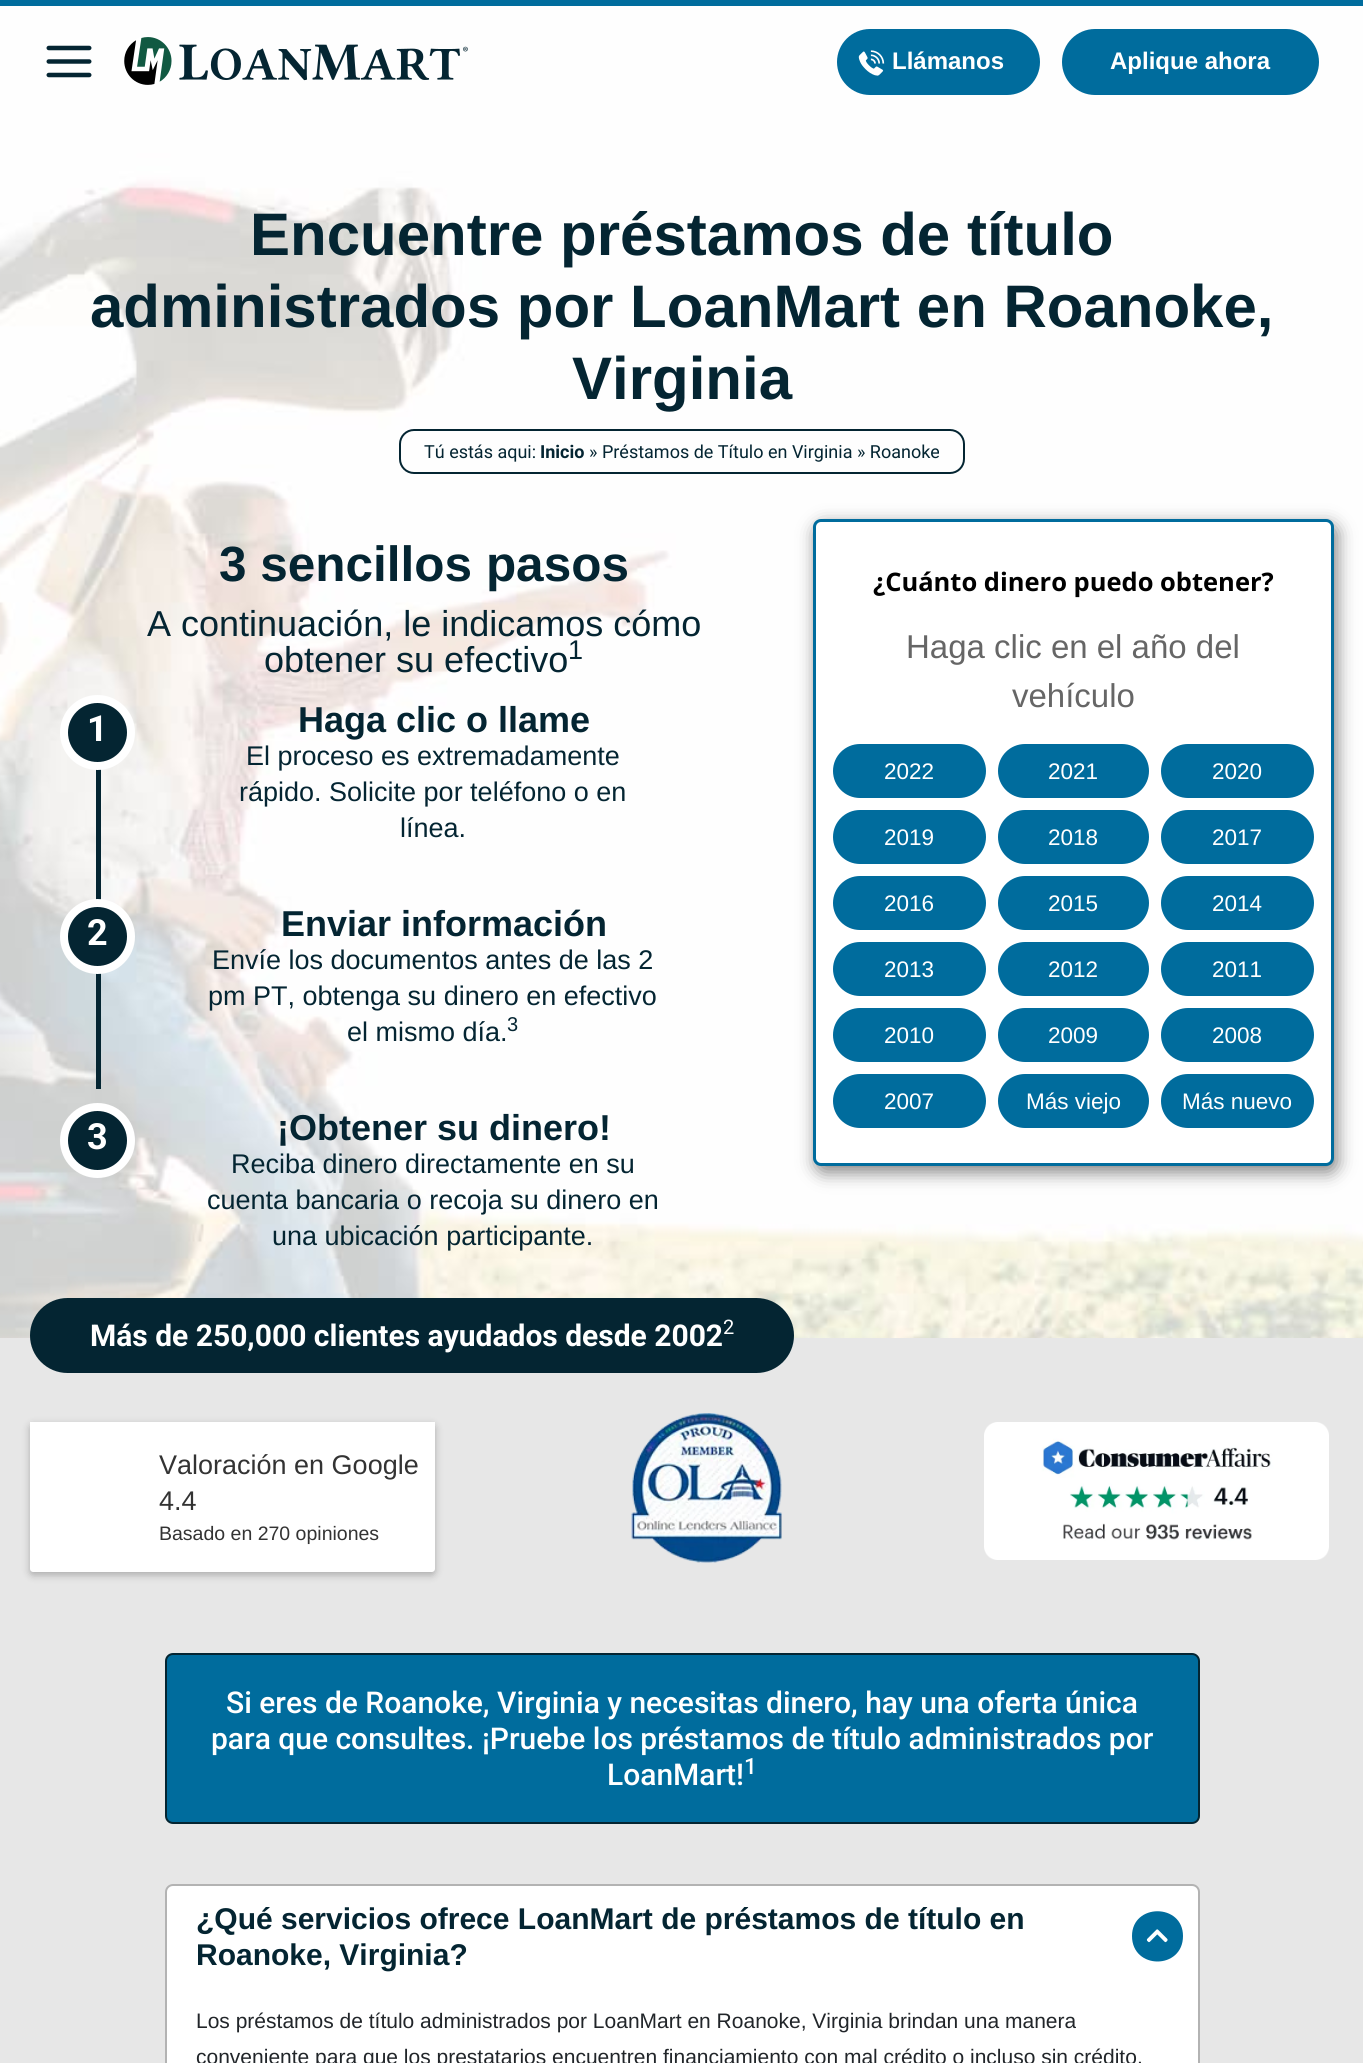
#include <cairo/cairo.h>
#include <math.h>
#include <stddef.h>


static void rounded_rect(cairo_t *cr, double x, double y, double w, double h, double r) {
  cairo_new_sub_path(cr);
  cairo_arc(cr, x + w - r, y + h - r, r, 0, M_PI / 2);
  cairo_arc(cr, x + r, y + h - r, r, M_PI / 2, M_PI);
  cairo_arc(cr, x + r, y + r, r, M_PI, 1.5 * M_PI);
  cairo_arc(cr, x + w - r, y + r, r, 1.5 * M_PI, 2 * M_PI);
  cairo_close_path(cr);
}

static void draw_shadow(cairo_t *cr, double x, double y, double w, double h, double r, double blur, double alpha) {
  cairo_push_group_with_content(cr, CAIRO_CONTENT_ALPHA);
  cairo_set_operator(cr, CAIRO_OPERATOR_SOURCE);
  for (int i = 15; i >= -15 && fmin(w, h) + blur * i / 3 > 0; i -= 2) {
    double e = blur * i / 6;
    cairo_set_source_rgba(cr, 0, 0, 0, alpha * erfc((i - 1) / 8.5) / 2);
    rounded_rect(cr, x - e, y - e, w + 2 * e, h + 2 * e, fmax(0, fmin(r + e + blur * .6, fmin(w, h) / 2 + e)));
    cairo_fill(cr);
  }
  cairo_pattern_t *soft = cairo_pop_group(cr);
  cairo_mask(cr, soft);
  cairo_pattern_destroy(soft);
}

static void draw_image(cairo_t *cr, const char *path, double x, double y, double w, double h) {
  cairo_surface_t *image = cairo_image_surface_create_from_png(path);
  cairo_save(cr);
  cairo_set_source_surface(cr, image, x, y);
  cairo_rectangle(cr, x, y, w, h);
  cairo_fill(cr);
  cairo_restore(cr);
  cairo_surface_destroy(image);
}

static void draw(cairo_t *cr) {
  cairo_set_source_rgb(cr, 1, 1, 1);
  cairo_paint(cr);
  cairo_set_source_rgb(cr, 0, 108 / 255.0, 157 / 255.0);
  cairo_rectangle(cr, 0, 0, 1363, 6);
  cairo_fill(cr);
  draw_image(cr, "images/4.png", 0, 6, 1363, 1332);
  draw_image(cr, "images/1.png", 46, 45, 46, 33);
  draw_image(cr, "images/2.png", 124, 37, 344, 48);
  rounded_rect(cr, 837, 29, 203, 66, 33);
  cairo_fill(cr);
  draw_image(cr, "images/3.png", 858, 50, 27, 26);
  rounded_rect(cr, 1062, 29, 257, 66, 33);
  cairo_fill(cr);
  rounded_rect(cr, 400, 430, 564, 43, 14);
  cairo_set_source_rgb(cr, 4 / 255.0, 37 / 255.0, 50 / 255.0);
  cairo_stroke(cr);
  cairo_rectangle(cr, 96, 769, 5, 320);
  cairo_fill(cr);
  cairo_arc(cr, 97.5, 732.5, 33.5, 0, 2 * M_PI);
  cairo_fill_preserve(cr);
  cairo_set_source_rgb(cr, 1, 1, 1);
  cairo_set_line_width(cr, 8);
  cairo_stroke(cr);
  cairo_set_source_rgb(cr, 4 / 255.0, 37 / 255.0, 50 / 255.0);
  cairo_arc(cr, 97.5, 936.5, 33.5, 0, 2 * M_PI);
  cairo_fill_preserve(cr);
  cairo_set_source_rgb(cr, 1, 1, 1);
  cairo_stroke(cr);
  cairo_set_source_rgb(cr, 4 / 255.0, 37 / 255.0, 50 / 255.0);
  cairo_arc(cr, 97.5, 1140.5, 33.5, 0, 2 * M_PI);
  cairo_fill_preserve(cr);
  cairo_set_source_rgb(cr, 1, 1, 1);
  cairo_stroke(cr);
  cairo_set_source_rgb(cr, 0, 0, 0);
  draw_shadow(cr, 816, 525, 521, 647, 8, 9, 0.5);
  cairo_set_source_rgb(cr, 1, 1, 1);
  rounded_rect(cr, 814.5, 520.5, 518, 644, 6.5);
  cairo_fill_preserve(cr);
  cairo_set_source_rgb(cr, 0, 108 / 255.0, 157 / 255.0);
  cairo_set_line_width(cr, 3);
  cairo_stroke(cr);
  rounded_rect(cr, 833, 744, 153, 54, 27);
  cairo_fill(cr);
  rounded_rect(cr, 998, 744, 151, 54, 27);
  cairo_fill(cr);
  rounded_rect(cr, 1161, 744, 153, 54, 27);
  cairo_fill(cr);
  rounded_rect(cr, 833, 810, 153, 54, 27);
  cairo_fill(cr);
  rounded_rect(cr, 998, 810, 151, 54, 27);
  cairo_fill(cr);
  rounded_rect(cr, 1161, 810, 153, 54, 27);
  cairo_fill(cr);
  rounded_rect(cr, 833, 876, 153, 54, 27);
  cairo_fill(cr);
  rounded_rect(cr, 998, 876, 151, 54, 27);
  cairo_fill(cr);
  rounded_rect(cr, 1161, 876, 153, 54, 27);
  cairo_fill(cr);
  rounded_rect(cr, 833, 942, 153, 54, 27);
  cairo_fill(cr);
  rounded_rect(cr, 998, 942, 151, 54, 27);
  cairo_fill(cr);
  rounded_rect(cr, 1161, 942, 153, 54, 27);
  cairo_fill(cr);
  rounded_rect(cr, 833, 1008, 153, 54, 27);
  cairo_fill(cr);
  rounded_rect(cr, 998, 1008, 151, 54, 27);
  cairo_fill(cr);
  rounded_rect(cr, 1161, 1008, 153, 54, 27);
  cairo_fill(cr);
  rounded_rect(cr, 833, 1074, 153, 54, 27);
  cairo_fill(cr);
  rounded_rect(cr, 998, 1074, 151, 54, 27);
  cairo_fill(cr);
  rounded_rect(cr, 1161, 1074, 153, 54, 27);
  cairo_fill(cr);
  cairo_set_source_rgb(cr, 231 / 255.0, 231 / 255.0, 231 / 255.0);
  cairo_rectangle(cr, 0, 1338, 1363, 725);
  cairo_fill(cr);
  cairo_set_source_rgb(cr, 4 / 255.0, 37 / 255.0, 50 / 255.0);
  rounded_rect(cr, 30, 1298, 764, 75, 37.5);
  cairo_fill(cr);
  cairo_set_source_rgb(cr, 0, 0, 0);
  draw_shadow(cr, 30, 1425, 405, 150, 3, 4, 0.26);
  cairo_set_source_rgb(cr, 1, 1, 1);
  cairo_new_path(cr);
  cairo_move_to(cr, 30, 1422);
  cairo_line_to(cr, 435, 1422);
  cairo_line_to(cr, 435, 1569);
  cairo_curve_to(cr, 435, 1570.5, 433.5, 1572, 432, 1572);
  cairo_line_to(cr, 33, 1572);
  cairo_curve_to(cr, 31.5, 1572, 30, 1570.5, 30, 1569);
  cairo_close_path(cr);
  cairo_fill(cr);
  draw_image(cr, "images/5.png", 631, 1413, 151, 150);
  draw_image(cr, "images/6.png", 984, 1422, 345, 138);
  cairo_set_source_rgb(cr, 0, 108 / 255.0, 157 / 255.0);
  rounded_rect(cr, 166, 1654, 1033, 169, 7);
  cairo_fill_preserve(cr);
  cairo_set_source_rgb(cr, 4 / 255.0, 37 / 255.0, 50 / 255.0);
  cairo_set_line_width(cr, 2);
  cairo_stroke(cr);
  cairo_set_source_rgb(cr, 1, 1, 1);
  rounded_rect(cr, 166, 1885, 1033, 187, 7);
  cairo_fill_preserve(cr);
  cairo_set_source_rgb(cr, 179 / 255.0, 179 / 255.0, 179 / 255.0);
  cairo_stroke(cr);
  cairo_set_source_rgb(cr, 0, 108 / 255.0, 157 / 255.0);
  cairo_new_path(cr);
  cairo_move_to(cr, 1132, 1936);
  cairo_curve_to(cr, 1132, 1903, 1183, 1903, 1183, 1936);
  cairo_curve_to(cr, 1183, 1970, 1132, 1970, 1132, 1936);
  cairo_close_path(cr);
  cairo_fill(cr);
  draw_image(cr, "images/7.png", 1146, 1929, 22, 14);
  cairo_select_font_face(cr, "Liberation Sans", CAIRO_FONT_SLANT_NORMAL, CAIRO_FONT_WEIGHT_BOLD);
  cairo_set_font_size(cr, 24);
  cairo_set_source_rgb(cr, 1, 1, 1);
  cairo_move_to(cr, 892, 69);
  cairo_show_text(cr, "Llámanos");
  cairo_move_to(cr, 1110, 69);
  cairo_show_text(cr, "Aplique ahora");
  cairo_set_font_size(cr, 60);
  cairo_set_source_rgb(cr, 4 / 255.0, 37 / 255.0, 50 / 255.0);
  cairo_move_to(cr, 250, 255);
  cairo_show_text(cr, "Encuentre préstamos de título");
  cairo_move_to(cr, 90, 327);
  cairo_show_text(cr, "administrados por LoanMart en Roanoke,");
  cairo_move_to(cr, 572, 399);
  cairo_show_text(cr, "Virginia");
  cairo_select_font_face(cr, "Roboto", CAIRO_FONT_SLANT_NORMAL, CAIRO_FONT_WEIGHT_NORMAL);
  cairo_set_font_size(cr, 18);
  cairo_move_to(cr, 424, 458);
  cairo_show_text(cr, "Tú estás aqui:");
  cairo_select_font_face(cr, "Roboto", CAIRO_FONT_SLANT_NORMAL, CAIRO_FONT_WEIGHT_BOLD);
  cairo_move_to(cr, 540, 458);
  cairo_show_text(cr, "Inicio");
  cairo_select_font_face(cr, "Roboto", CAIRO_FONT_SLANT_NORMAL, CAIRO_FONT_WEIGHT_NORMAL);
  cairo_move_to(cr, 589, 458);
  cairo_show_text(cr, "» Préstamos de Título en Virginia » Roanoke");
  cairo_select_font_face(cr, "Liberation Sans", CAIRO_FONT_SLANT_NORMAL, CAIRO_FONT_WEIGHT_BOLD);
  cairo_set_font_size(cr, 49.5);
  cairo_move_to(cr, 219, 581);
  cairo_show_text(cr, "3 sencillos pasos");
  cairo_select_font_face(cr, "Liberation Sans", CAIRO_FONT_SLANT_NORMAL, CAIRO_FONT_WEIGHT_NORMAL);
  cairo_set_font_size(cr, 36);
  cairo_move_to(cr, 147, 636);
  cairo_show_text(cr, "A continuación, le indicamos cómo");
  cairo_move_to(cr, 264, 672);
  cairo_show_text(cr, "obtener su efectivo");
  cairo_set_font_size(cr, 27);
  cairo_move_to(cr, 568, 659);
  cairo_show_text(cr, "1");
  cairo_select_font_face(cr, "Roboto", CAIRO_FONT_SLANT_NORMAL, CAIRO_FONT_WEIGHT_BOLD);
  cairo_set_font_size(cr, 36);
  cairo_set_source_rgb(cr, 1, 1, 1);
  cairo_move_to(cr, 87, 741);
  cairo_show_text(cr, "1");
  cairo_select_font_face(cr, "Liberation Sans", CAIRO_FONT_SLANT_NORMAL, CAIRO_FONT_WEIGHT_BOLD);
  cairo_set_source_rgb(cr, 4 / 255.0, 37 / 255.0, 50 / 255.0);
  cairo_move_to(cr, 298, 732);
  cairo_show_text(cr, "Haga clic o llame");
  cairo_select_font_face(cr, "Liberation Sans", CAIRO_FONT_SLANT_NORMAL, CAIRO_FONT_WEIGHT_NORMAL);
  cairo_set_font_size(cr, 27);
  cairo_move_to(cr, 246, 765);
  cairo_show_text(cr, "El proceso es extremadamente");
  cairo_move_to(cr, 239, 801);
  cairo_show_text(cr, "rápido. Solicite por teléfono o en");
  cairo_move_to(cr, 400, 837);
  cairo_show_text(cr, "línea.");
  cairo_select_font_face(cr, "Roboto", CAIRO_FONT_SLANT_NORMAL, CAIRO_FONT_WEIGHT_BOLD);
  cairo_set_font_size(cr, 36);
  cairo_set_source_rgb(cr, 1, 1, 1);
  cairo_move_to(cr, 87, 945);
  cairo_show_text(cr, "2");
  cairo_select_font_face(cr, "Liberation Sans", CAIRO_FONT_SLANT_NORMAL, CAIRO_FONT_WEIGHT_BOLD);
  cairo_set_source_rgb(cr, 4 / 255.0, 37 / 255.0, 50 / 255.0);
  cairo_move_to(cr, 281, 936);
  cairo_show_text(cr, "Enviar información");
  cairo_select_font_face(cr, "Liberation Sans", CAIRO_FONT_SLANT_NORMAL, CAIRO_FONT_WEIGHT_NORMAL);
  cairo_set_font_size(cr, 27);
  cairo_move_to(cr, 212, 969);
  cairo_show_text(cr, "Envíe los documentos antes de las 2");
  cairo_move_to(cr, 208, 1005);
  cairo_show_text(cr, "pm PT, obtenga su dinero en efectivo");
  cairo_move_to(cr, 347, 1041);
  cairo_show_text(cr, "el mismo día.");
  cairo_set_font_size(cr, 20);
  cairo_move_to(cr, 507, 1031);
  cairo_show_text(cr, "3");
  cairo_select_font_face(cr, "Roboto", CAIRO_FONT_SLANT_NORMAL, CAIRO_FONT_WEIGHT_BOLD);
  cairo_set_font_size(cr, 36);
  cairo_set_source_rgb(cr, 1, 1, 1);
  cairo_move_to(cr, 87, 1149);
  cairo_show_text(cr, "3");
  cairo_select_font_face(cr, "Liberation Sans", CAIRO_FONT_SLANT_NORMAL, CAIRO_FONT_WEIGHT_BOLD);
  cairo_set_source_rgb(cr, 4 / 255.0, 37 / 255.0, 50 / 255.0);
  cairo_move_to(cr, 277, 1140);
  cairo_show_text(cr, "¡Obtener su dinero!");
  cairo_select_font_face(cr, "Liberation Sans", CAIRO_FONT_SLANT_NORMAL, CAIRO_FONT_WEIGHT_NORMAL);
  cairo_set_font_size(cr, 27);
  cairo_move_to(cr, 231, 1173);
  cairo_show_text(cr, "Reciba dinero directamente en su");
  cairo_move_to(cr, 207, 1209);
  cairo_show_text(cr, "cuenta bancaria o recoja su dinero en");
  cairo_move_to(cr, 272, 1245);
  cairo_show_text(cr, "una ubicación participante.");
  cairo_select_font_face(cr, "Open Sans", CAIRO_FONT_SLANT_NORMAL, CAIRO_FONT_WEIGHT_BOLD);
  cairo_set_font_size(cr, 25.5);
  cairo_set_source_rgb(cr, 0, 0, 0);
  cairo_move_to(cr, 873, 591);
  cairo_show_text(cr, "¿Cuánto dinero puedo obtener?");
  cairo_select_font_face(cr, "Liberation Sans", CAIRO_FONT_SLANT_NORMAL, CAIRO_FONT_WEIGHT_NORMAL);
  cairo_set_font_size(cr, 33);
  cairo_set_source_rgb(cr, 102 / 255.0, 102 / 255.0, 102 / 255.0);
  cairo_move_to(cr, 906, 658);
  cairo_show_text(cr, "Haga clic en el año del");
  cairo_move_to(cr, 1012, 707);
  cairo_show_text(cr, "vehículo");
  cairo_set_font_size(cr, 22.5);
  cairo_set_source_rgb(cr, 1, 1, 1);
  cairo_move_to(cr, 884, 779);
  cairo_show_text(cr, "2022");
  cairo_move_to(cr, 1048, 779);
  cairo_show_text(cr, "2021");
  cairo_move_to(cr, 1212, 779);
  cairo_show_text(cr, "2020");
  cairo_move_to(cr, 884, 845);
  cairo_show_text(cr, "2019");
  cairo_move_to(cr, 1048, 845);
  cairo_show_text(cr, "2018");
  cairo_move_to(cr, 1212, 845);
  cairo_show_text(cr, "2017");
  cairo_move_to(cr, 884, 911);
  cairo_show_text(cr, "2016");
  cairo_move_to(cr, 1048, 911);
  cairo_show_text(cr, "2015");
  cairo_move_to(cr, 1212, 911);
  cairo_show_text(cr, "2014");
  cairo_move_to(cr, 884, 977);
  cairo_show_text(cr, "2013");
  cairo_move_to(cr, 1048, 977);
  cairo_show_text(cr, "2012");
  cairo_move_to(cr, 1212, 977);
  cairo_show_text(cr, "2011");
  cairo_move_to(cr, 884, 1043);
  cairo_show_text(cr, "2010");
  cairo_move_to(cr, 1048, 1043);
  cairo_show_text(cr, "2009");
  cairo_move_to(cr, 1212, 1043);
  cairo_show_text(cr, "2008");
  cairo_move_to(cr, 884, 1109);
  cairo_show_text(cr, "2007");
  cairo_move_to(cr, 1026, 1109);
  cairo_show_text(cr, "Más viejo");
  cairo_move_to(cr, 1182, 1109);
  cairo_show_text(cr, "Más nuevo");
  cairo_select_font_face(cr, "Roboto", CAIRO_FONT_SLANT_NORMAL, CAIRO_FONT_WEIGHT_BOLD);
  cairo_set_font_size(cr, 30);
  cairo_move_to(cr, 90, 1346);
  cairo_show_text(cr, "Más de 250,000 clientes ayudados desde 2002");
  cairo_select_font_face(cr, "Roboto", CAIRO_FONT_SLANT_NORMAL, CAIRO_FONT_WEIGHT_NORMAL);
  cairo_set_font_size(cr, 20);
  cairo_move_to(cr, 723, 1334);
  cairo_show_text(cr, "2");
  cairo_select_font_face(cr, "Liberation Sans", CAIRO_FONT_SLANT_NORMAL, CAIRO_FONT_WEIGHT_NORMAL);
  cairo_set_font_size(cr, 27);
  cairo_set_source_rgb(cr, 51 / 255.0, 51 / 255.0, 51 / 255.0);
  cairo_move_to(cr, 159, 1474);
  cairo_show_text(cr, "Valoración en Google");
  cairo_move_to(cr, 159, 1510);
  cairo_show_text(cr, "4.4");
  cairo_set_font_size(cr, 19.5);
  cairo_move_to(cr, 159, 1540);
  cairo_show_text(cr, "Basado en 270 opiniones");
  cairo_select_font_face(cr, "Roboto Medium", CAIRO_FONT_SLANT_NORMAL, CAIRO_FONT_WEIGHT_NORMAL);
  cairo_set_font_size(cr, 30);
  cairo_set_source_rgb(cr, 1, 1, 1);
  cairo_move_to(cr, 226, 1713);
  cairo_show_text(cr, "Si eres de Roanoke, Virginia y necesitas dinero, hay una oferta única");
  cairo_move_to(cr, 211, 1749);
  cairo_show_text(cr, "para que consultes. ¡Pruebe los préstamos de título administrados por");
  cairo_move_to(cr, 607, 1785);
  cairo_show_text(cr, "LoanMart!");
  cairo_set_font_size(cr, 22.5);
  cairo_move_to(cr, 744, 1774);
  cairo_show_text(cr, "1");
  cairo_select_font_face(cr, "Liberation Sans", CAIRO_FONT_SLANT_NORMAL, CAIRO_FONT_WEIGHT_BOLD);
  cairo_set_font_size(cr, 30);
  cairo_set_source_rgb(cr, 4 / 255.0, 37 / 255.0, 50 / 255.0);
  cairo_move_to(cr, 196, 1929);
  cairo_show_text(cr, "¿Qué servicios ofrece LoanMart de préstamos de título en");
  cairo_move_to(cr, 196, 1965);
  cairo_show_text(cr, "Roanoke, Virginia?");
  cairo_select_font_face(cr, "Liberation Sans", CAIRO_FONT_SLANT_NORMAL, CAIRO_FONT_WEIGHT_NORMAL);
  cairo_set_font_size(cr, 21);
  cairo_set_source_rgb(cr, 33 / 255.0, 37 / 255.0, 41 / 255.0);
  cairo_move_to(cr, 196, 2028);
  cairo_show_text(cr, "Los préstamos de título administrados por LoanMart en Roanoke, Virginia brindan una manera");
  cairo_move_to(cr, 196, 2064);
  cairo_show_text(cr, "conveniente para que los prestatarios encuentren financiamiento con mal crédito o incluso sin crédito.");
}

int main(void) {
  cairo_surface_t *surface = cairo_image_surface_create(CAIRO_FORMAT_RGB24, 1363, 2063);
  cairo_t *cr = cairo_create(surface);
  cairo_font_options_t *options = cairo_font_options_create();
  cairo_font_options_set_hint_metrics(options, CAIRO_HINT_METRICS_OFF);
  cairo_font_options_set_hint_style(options, CAIRO_HINT_STYLE_NONE);
  cairo_set_font_options(cr, options);
  cairo_set_miter_limit(cr, 4);
  draw(cr);
  cairo_surface_write_to_png(surface, "out.png");
  cairo_font_options_destroy(options);
  cairo_destroy(cr);
  cairo_surface_destroy(surface);
  return 0;
}
